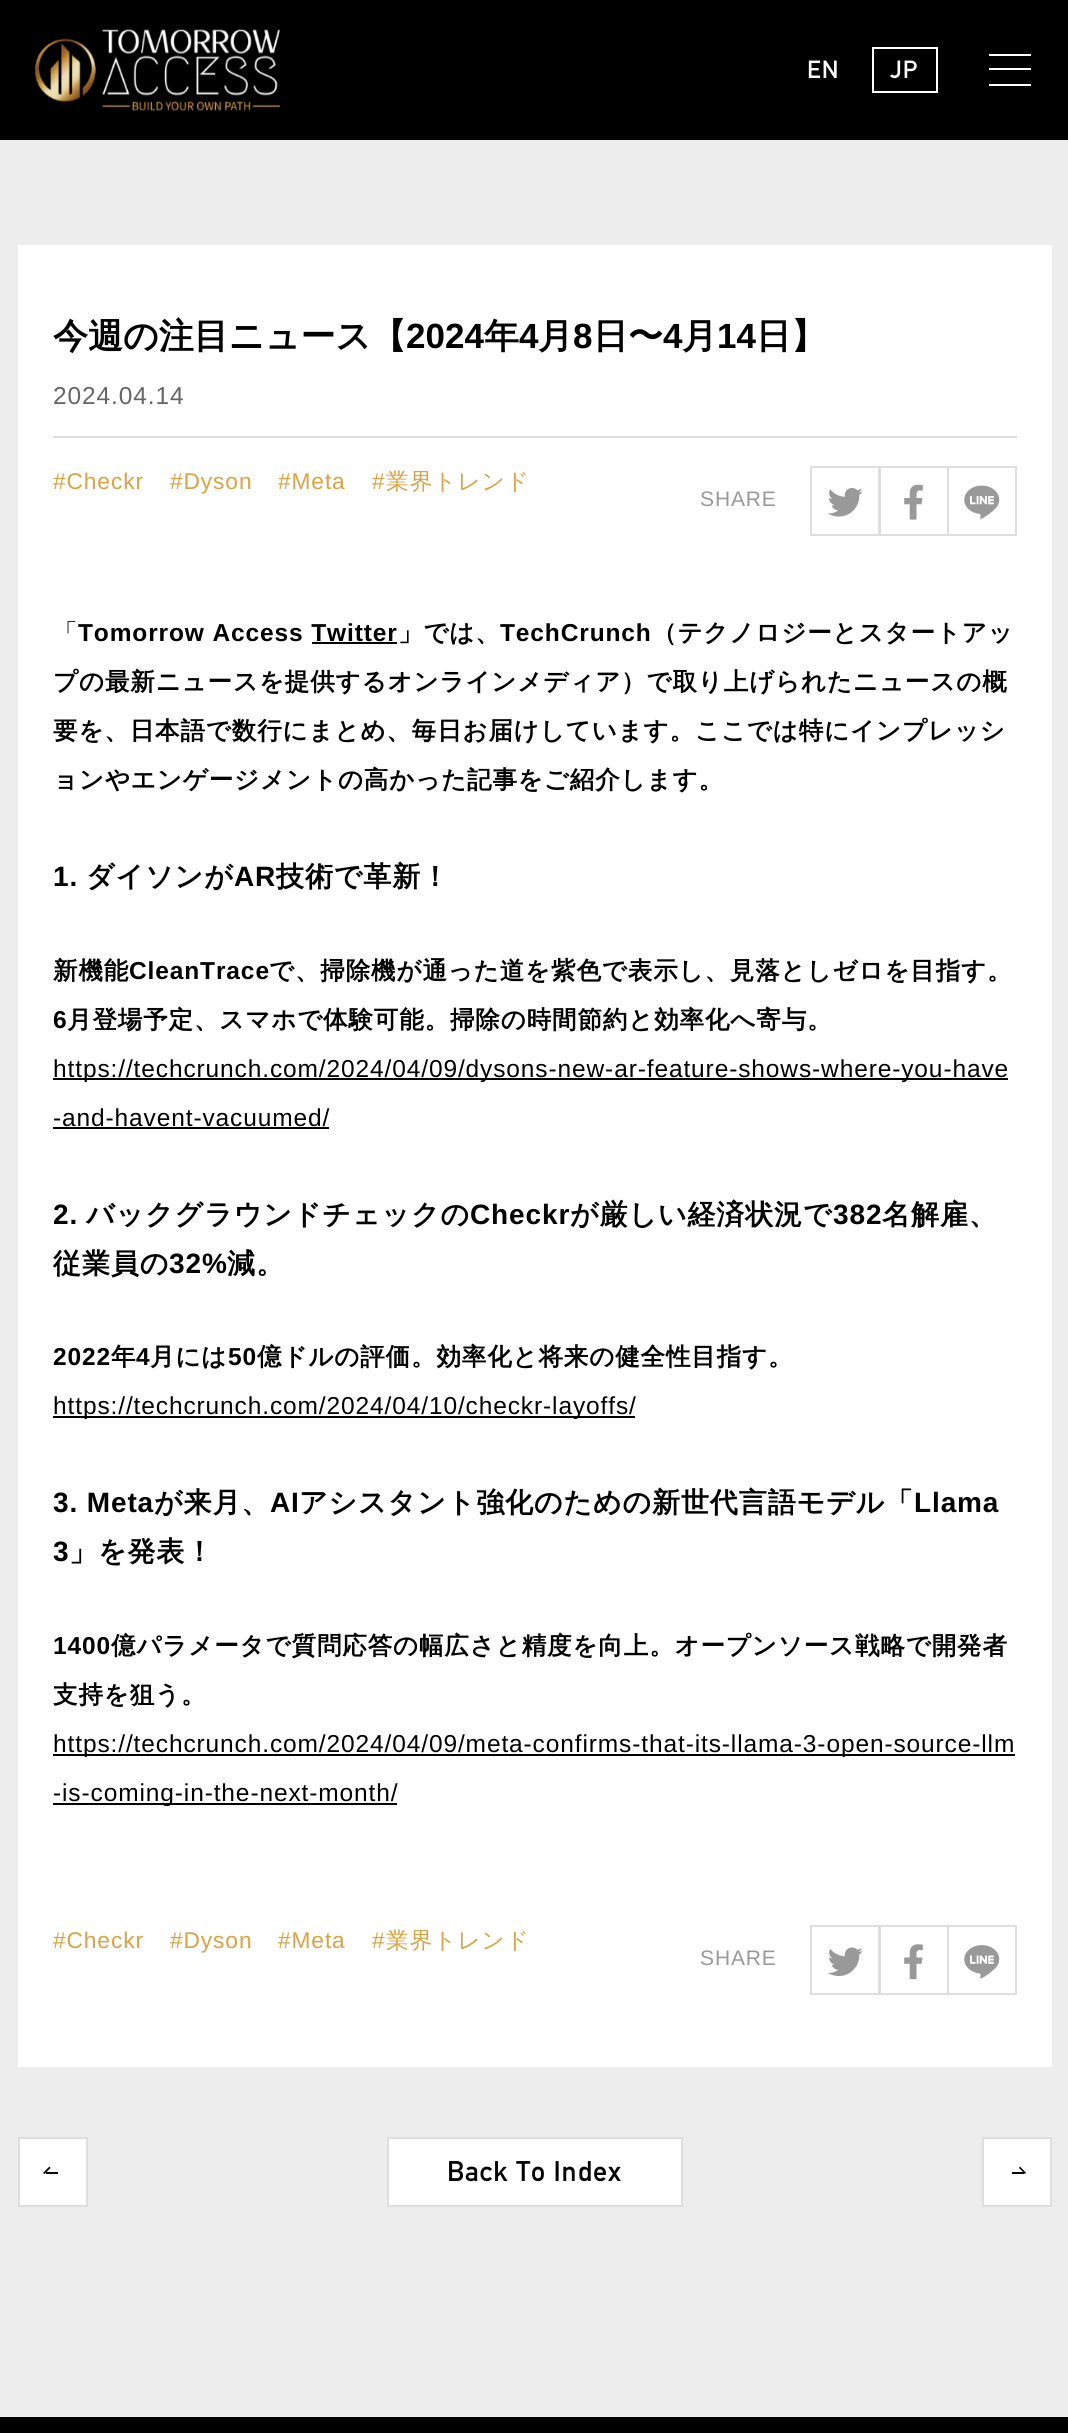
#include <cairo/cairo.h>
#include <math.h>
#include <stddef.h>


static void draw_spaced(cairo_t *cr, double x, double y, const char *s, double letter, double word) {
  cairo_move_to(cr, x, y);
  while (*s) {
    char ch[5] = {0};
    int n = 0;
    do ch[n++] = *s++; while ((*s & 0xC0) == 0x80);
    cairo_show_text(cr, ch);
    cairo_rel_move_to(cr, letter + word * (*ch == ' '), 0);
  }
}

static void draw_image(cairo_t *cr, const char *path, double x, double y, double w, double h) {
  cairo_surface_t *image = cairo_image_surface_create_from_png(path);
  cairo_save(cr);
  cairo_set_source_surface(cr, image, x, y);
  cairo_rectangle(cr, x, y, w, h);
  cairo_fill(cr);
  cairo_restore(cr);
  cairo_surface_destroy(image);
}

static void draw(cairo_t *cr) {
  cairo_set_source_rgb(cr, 237 / 255.0, 237 / 255.0, 237 / 255.0);
  cairo_paint(cr);
  cairo_set_source_rgb(cr, 0, 0, 0);
  cairo_rectangle(cr, 0, 0, 1068, 140);
  cairo_fill(cr);
  draw_image(cr, "images/1.png", 35, 29, 245, 82);
  cairo_rectangle(cr, 873, 48, 64, 44);
  cairo_set_source_rgb(cr, 1, 1, 1);
  cairo_stroke(cr);
  cairo_rectangle(cr, 989, 54, 42, 2);
  cairo_fill(cr);
  cairo_rectangle(cr, 989, 68, 42, 2);
  cairo_fill(cr);
  cairo_rectangle(cr, 989, 84, 42, 2);
  cairo_fill(cr);
  cairo_rectangle(cr, 18, 245, 1034, 1822);
  cairo_fill(cr);
  cairo_set_source_rgb(cr, 222 / 255.0, 222 / 255.0, 222 / 255.0);
  cairo_rectangle(cr, 53, 436, 964, 2);
  cairo_fill(cr);
  cairo_rectangle(cr, 811, 467, 68, 68);
  cairo_stroke(cr);
  draw_image(cr, "images/2.png", 828, 488, 35, 29);
  cairo_rectangle(cr, 880, 467, 68, 68);
  cairo_stroke(cr);
  draw_image(cr, "images/3.png", 904, 484, 19, 36);
  cairo_rectangle(cr, 948, 467, 68, 68);
  cairo_stroke(cr);
  draw_image(cr, "images/4.png", 964, 485, 36, 34);
  cairo_set_source_rgb(cr, 0, 0, 0);
  cairo_rectangle(cr, 312, 642, 85, 2);
  cairo_fill(cr);
  cairo_rectangle(cr, 53, 1078, 955, 2);
  cairo_fill(cr);
  cairo_rectangle(cr, 53, 1127, 276, 2);
  cairo_fill(cr);
  cairo_rectangle(cr, 53, 1416, 582, 2);
  cairo_fill(cr);
  cairo_rectangle(cr, 53, 1754, 962, 2);
  cairo_fill(cr);
  cairo_rectangle(cr, 53, 1803, 344, 2);
  cairo_fill(cr);
  cairo_rectangle(cr, 811, 1926, 68, 68);
  cairo_set_source_rgb(cr, 222 / 255.0, 222 / 255.0, 222 / 255.0);
  cairo_stroke(cr);
  draw_image(cr, "images/5.png", 828, 1947, 35, 29);
  cairo_rectangle(cr, 880, 1926, 68, 68);
  cairo_stroke(cr);
  draw_image(cr, "images/6.png", 904, 1944, 19, 36);
  cairo_rectangle(cr, 948, 1926, 68, 68);
  cairo_stroke(cr);
  draw_image(cr, "images/7.png", 964, 1945, 36, 34);
  cairo_set_source_rgb(cr, 1, 1, 1);
  cairo_rectangle(cr, 19, 2138, 68, 68);
  cairo_fill_preserve(cr);
  cairo_set_source_rgb(cr, 222 / 255.0, 222 / 255.0, 222 / 255.0);
  cairo_stroke(cr);
  cairo_set_source_rgb(cr, 0, 0, 0);
  cairo_new_path(cr);
  cairo_move_to(cr, 49.5, 2166.5);
  cairo_line_to(cr, 43, 2173);
  cairo_line_to(cr, 44.5, 2174);
  cairo_line_to(cr, 50.5, 2168);
  cairo_close_path(cr);
  cairo_fill(cr);
  cairo_rectangle(cr, 46, 2172, 12, 2);
  cairo_fill(cr);
  cairo_set_source_rgb(cr, 1, 1, 1);
  cairo_rectangle(cr, 388, 2138, 294, 68);
  cairo_fill_preserve(cr);
  cairo_set_source_rgb(cr, 222 / 255.0, 222 / 255.0, 222 / 255.0);
  cairo_stroke(cr);
  cairo_set_source_rgb(cr, 1, 1, 1);
  cairo_rectangle(cr, 983, 2138, 68, 68);
  cairo_fill_preserve(cr);
  cairo_set_source_rgb(cr, 222 / 255.0, 222 / 255.0, 222 / 255.0);
  cairo_stroke(cr);
  cairo_set_source_rgb(cr, 0, 0, 0);
  cairo_new_path(cr);
  cairo_move_to(cr, 1020, 2166.5);
  cairo_line_to(cr, 1026, 2173);
  cairo_line_to(cr, 1025, 2174);
  cairo_line_to(cr, 1019, 2168);
  cairo_close_path(cr);
  cairo_fill(cr);
  cairo_rectangle(cr, 1012, 2172, 12, 2);
  cairo_fill(cr);
  cairo_rectangle(cr, 0, 2417, 1068, 16);
  cairo_fill(cr);
  cairo_select_font_face(cr, "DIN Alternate", CAIRO_FONT_SLANT_NORMAL, CAIRO_FONT_WEIGHT_BOLD);
  cairo_set_font_size(cr, 24.5);
  cairo_set_source_rgb(cr, 1, 1, 1);
  draw_spaced(cr, 807, 78, "EN", 1, 0);
  draw_spaced(cr, 890, 78, "JP", 1, 0);
  cairo_select_font_face(cr, "WenQuanYi Zen Hei", CAIRO_FONT_SLANT_NORMAL, CAIRO_FONT_WEIGHT_BOLD);
  cairo_set_font_size(cr, 35);
  cairo_set_source_rgb(cr, 0, 0, 0);
  cairo_move_to(cr, 53, 348);
  cairo_show_text(cr, "今週の注目ニュース【");
  cairo_select_font_face(cr, "Liberation Sans", CAIRO_FONT_SLANT_NORMAL, CAIRO_FONT_WEIGHT_BOLD);
  cairo_move_to(cr, 406, 348);
  cairo_show_text(cr, "2024");
  cairo_select_font_face(cr, "WenQuanYi Zen Hei", CAIRO_FONT_SLANT_NORMAL, CAIRO_FONT_WEIGHT_BOLD);
  cairo_move_to(cr, 484, 348);
  cairo_show_text(cr, "年");
  cairo_select_font_face(cr, "Liberation Sans", CAIRO_FONT_SLANT_NORMAL, CAIRO_FONT_WEIGHT_BOLD);
  cairo_move_to(cr, 519, 348);
  cairo_show_text(cr, "4");
  cairo_select_font_face(cr, "WenQuanYi Zen Hei", CAIRO_FONT_SLANT_NORMAL, CAIRO_FONT_WEIGHT_BOLD);
  cairo_move_to(cr, 538, 348);
  cairo_show_text(cr, "月");
  cairo_select_font_face(cr, "Liberation Sans", CAIRO_FONT_SLANT_NORMAL, CAIRO_FONT_WEIGHT_BOLD);
  cairo_move_to(cr, 573, 348);
  cairo_show_text(cr, "8");
  cairo_select_font_face(cr, "WenQuanYi Zen Hei", CAIRO_FONT_SLANT_NORMAL, CAIRO_FONT_WEIGHT_BOLD);
  cairo_move_to(cr, 593, 348);
  cairo_show_text(cr, "日〜");
  cairo_select_font_face(cr, "Liberation Sans", CAIRO_FONT_SLANT_NORMAL, CAIRO_FONT_WEIGHT_BOLD);
  cairo_move_to(cr, 663, 348);
  cairo_show_text(cr, "4");
  cairo_select_font_face(cr, "WenQuanYi Zen Hei", CAIRO_FONT_SLANT_NORMAL, CAIRO_FONT_WEIGHT_BOLD);
  cairo_move_to(cr, 682, 348);
  cairo_show_text(cr, "月");
  cairo_select_font_face(cr, "Liberation Sans", CAIRO_FONT_SLANT_NORMAL, CAIRO_FONT_WEIGHT_BOLD);
  cairo_move_to(cr, 717, 348);
  cairo_show_text(cr, "14");
  cairo_select_font_face(cr, "WenQuanYi Zen Hei", CAIRO_FONT_SLANT_NORMAL, CAIRO_FONT_WEIGHT_BOLD);
  cairo_move_to(cr, 756, 348);
  cairo_show_text(cr, "日】");
  cairo_select_font_face(cr, "Liberation Sans", CAIRO_FONT_SLANT_NORMAL, CAIRO_FONT_WEIGHT_NORMAL);
  cairo_set_font_size(cr, 24.5);
  cairo_set_source_rgb(cr, 102 / 255.0, 102 / 255.0, 102 / 255.0);
  draw_spaced(cr, 53, 404, "2024.04.14", 0.88, 0);
  cairo_set_font_size(cr, 22.75);
  cairo_set_source_rgb(cr, 218 / 255.0, 162 / 255.0, 65 / 255.0);
  draw_spaced(cr, 53, 489, "#Checkr", 0.88, 0);
  draw_spaced(cr, 170, 489, "#Dyson", 0.88, 0);
  draw_spaced(cr, 278, 489, "#Meta", 0.88, 0);
  draw_spaced(cr, 372, 489, "#", 0.88, 0);
  cairo_select_font_face(cr, "WenQuanYi Zen Hei Medium", CAIRO_FONT_SLANT_NORMAL, CAIRO_FONT_WEIGHT_NORMAL);
  draw_spaced(cr, 386, 489, "業界トレンド", 0.88, 0);
  cairo_select_font_face(cr, "Liberation Sans", CAIRO_FONT_SLANT_NORMAL, CAIRO_FONT_WEIGHT_NORMAL);
  cairo_set_font_size(cr, 21);
  cairo_set_source_rgb(cr, 153 / 255.0, 153 / 255.0, 153 / 255.0);
  draw_spaced(cr, 700, 506, "SHARE", 0.88, 0);
  cairo_select_font_face(cr, "WenQuanYi Zen Hei Medium", CAIRO_FONT_SLANT_NORMAL, CAIRO_FONT_WEIGHT_NORMAL);
  cairo_set_font_size(cr, 24.5);
  cairo_set_source_rgb(cr, 0, 0, 0);
  draw_spaced(cr, 53, 641, "「", 0.88, 0);
  cairo_select_font_face(cr, "Liberation Sans", CAIRO_FONT_SLANT_NORMAL, CAIRO_FONT_WEIGHT_BOLD);
  draw_spaced(cr, 78, 641, "Tomorrow Access Twitter", 0.88, 0);
  cairo_select_font_face(cr, "WenQuanYi Zen Hei", CAIRO_FONT_SLANT_NORMAL, CAIRO_FONT_WEIGHT_BOLD);
  draw_spaced(cr, 398, 641, "」では、", 0.88, 0);
  cairo_select_font_face(cr, "Liberation Sans", CAIRO_FONT_SLANT_NORMAL, CAIRO_FONT_WEIGHT_BOLD);
  draw_spaced(cr, 500, 641, "TechCrunch", 0.88, 0);
  cairo_select_font_face(cr, "WenQuanYi Zen Hei", CAIRO_FONT_SLANT_NORMAL, CAIRO_FONT_WEIGHT_BOLD);
  draw_spaced(cr, 652, 641, "（テクノロジーとスタートアッ", 0.88, 0);
  draw_spaced(cr, 53, 690, "プの最新ニュースを提供するオンラインメディア）で取り上げられたニュースの概", 0.88, 0);
  draw_spaced(cr, 53, 739, "要を、日本語で数行にまとめ、毎日お届けしています。ここでは特にインプレッシ", 0.88, 0);
  draw_spaced(cr, 53, 788, "ョンやエンゲージメントの高かった記事をご紹介します。", 0.88, 0);
  cairo_select_font_face(cr, "Liberation Sans", CAIRO_FONT_SLANT_NORMAL, CAIRO_FONT_WEIGHT_BOLD);
  cairo_set_font_size(cr, 28);
  draw_spaced(cr, 53, 886, "1.", 0.88, 0);
  cairo_select_font_face(cr, "WenQuanYi Zen Hei", CAIRO_FONT_SLANT_NORMAL, CAIRO_FONT_WEIGHT_BOLD);
  draw_spaced(cr, 86, 886, "ダイソンが", 0.88, 0);
  cairo_select_font_face(cr, "Liberation Sans", CAIRO_FONT_SLANT_NORMAL, CAIRO_FONT_WEIGHT_BOLD);
  draw_spaced(cr, 234, 886, "AR", 0.88, 0);
  cairo_select_font_face(cr, "WenQuanYi Zen Hei", CAIRO_FONT_SLANT_NORMAL, CAIRO_FONT_WEIGHT_BOLD);
  draw_spaced(cr, 276, 886, "技術で革新！", 0.88, 0);
  cairo_set_font_size(cr, 24.5);
  draw_spaced(cr, 53, 979, "新機能", 0.88, 0);
  cairo_select_font_face(cr, "Liberation Sans", CAIRO_FONT_SLANT_NORMAL, CAIRO_FONT_WEIGHT_BOLD);
  draw_spaced(cr, 129, 979, "CleanTrace", 0.88, 0);
  cairo_select_font_face(cr, "WenQuanYi Zen Hei", CAIRO_FONT_SLANT_NORMAL, CAIRO_FONT_WEIGHT_BOLD);
  draw_spaced(cr, 269, 979, "で、掃除機が通った道を紫色で表示し、見落としゼロを目指す。", 0.88, 0);
  cairo_select_font_face(cr, "Liberation Sans", CAIRO_FONT_SLANT_NORMAL, CAIRO_FONT_WEIGHT_BOLD);
  draw_spaced(cr, 53, 1028, "6", 0.88, 0);
  cairo_select_font_face(cr, "WenQuanYi Zen Hei", CAIRO_FONT_SLANT_NORMAL, CAIRO_FONT_WEIGHT_BOLD);
  draw_spaced(cr, 67, 1028, "月登場予定、スマホで体験可能。掃除の時間節約と効率化へ寄与。", 0.88, 0);
  cairo_select_font_face(cr, "Liberation Sans", CAIRO_FONT_SLANT_NORMAL, CAIRO_FONT_WEIGHT_NORMAL);
  draw_spaced(cr, 53, 1077, "https://techcrunch.com/2024/04/09/dysons-new-ar-feature-shows-where-you-have", 0.88, 0);
  draw_spaced(cr, 53, 1126, "-and-havent-vacuumed/", 0.88, 0);
  cairo_select_font_face(cr, "Liberation Sans", CAIRO_FONT_SLANT_NORMAL, CAIRO_FONT_WEIGHT_BOLD);
  cairo_set_font_size(cr, 28);
  draw_spaced(cr, 53, 1224, "2.", 0.88, 0);
  cairo_select_font_face(cr, "WenQuanYi Zen Hei", CAIRO_FONT_SLANT_NORMAL, CAIRO_FONT_WEIGHT_BOLD);
  draw_spaced(cr, 86, 1224, "バックグラウンドチェックの", 0.88, 0);
  cairo_select_font_face(cr, "Liberation Sans", CAIRO_FONT_SLANT_NORMAL, CAIRO_FONT_WEIGHT_BOLD);
  draw_spaced(cr, 470, 1224, "Checkr", 0.88, 0);
  cairo_select_font_face(cr, "WenQuanYi Zen Hei", CAIRO_FONT_SLANT_NORMAL, CAIRO_FONT_WEIGHT_BOLD);
  draw_spaced(cr, 570, 1224, "が厳しい経済状況で", 0.88, 0);
  cairo_select_font_face(cr, "Liberation Sans", CAIRO_FONT_SLANT_NORMAL, CAIRO_FONT_WEIGHT_BOLD);
  draw_spaced(cr, 833, 1224, "382", 0.88, 0);
  cairo_select_font_face(cr, "WenQuanYi Zen Hei", CAIRO_FONT_SLANT_NORMAL, CAIRO_FONT_WEIGHT_BOLD);
  draw_spaced(cr, 882, 1224, "名解雇、", 0.88, 0);
  draw_spaced(cr, 53, 1273, "従業員の", 0.88, 0);
  cairo_select_font_face(cr, "Liberation Sans", CAIRO_FONT_SLANT_NORMAL, CAIRO_FONT_WEIGHT_BOLD);
  draw_spaced(cr, 169, 1273, "32%", 0.88, 0);
  cairo_select_font_face(cr, "WenQuanYi Zen Hei", CAIRO_FONT_SLANT_NORMAL, CAIRO_FONT_WEIGHT_BOLD);
  draw_spaced(cr, 227, 1273, "減。", 0.88, 0);
  cairo_select_font_face(cr, "Liberation Sans", CAIRO_FONT_SLANT_NORMAL, CAIRO_FONT_WEIGHT_BOLD);
  cairo_set_font_size(cr, 24.5);
  draw_spaced(cr, 53, 1365, "2022", 0.88, 0);
  cairo_select_font_face(cr, "WenQuanYi Zen Hei", CAIRO_FONT_SLANT_NORMAL, CAIRO_FONT_WEIGHT_BOLD);
  draw_spaced(cr, 111, 1365, "年", 0.88, 0);
  cairo_select_font_face(cr, "Liberation Sans", CAIRO_FONT_SLANT_NORMAL, CAIRO_FONT_WEIGHT_BOLD);
  draw_spaced(cr, 136, 1365, "4", 0.88, 0);
  cairo_select_font_face(cr, "WenQuanYi Zen Hei", CAIRO_FONT_SLANT_NORMAL, CAIRO_FONT_WEIGHT_BOLD);
  draw_spaced(cr, 150, 1365, "月には", 0.88, 0);
  cairo_select_font_face(cr, "Liberation Sans", CAIRO_FONT_SLANT_NORMAL, CAIRO_FONT_WEIGHT_BOLD);
  draw_spaced(cr, 228, 1365, "50", 0.88, 0);
  cairo_select_font_face(cr, "WenQuanYi Zen Hei", CAIRO_FONT_SLANT_NORMAL, CAIRO_FONT_WEIGHT_BOLD);
  draw_spaced(cr, 257, 1365, "億ドルの評価。効率化と将来の健全性目指す。", 0.88, 0);
  cairo_select_font_face(cr, "Liberation Sans", CAIRO_FONT_SLANT_NORMAL, CAIRO_FONT_WEIGHT_NORMAL);
  draw_spaced(cr, 53, 1414, "https://techcrunch.com/2024/04/10/checkr-layoffs/", 0.88, 0);
  cairo_select_font_face(cr, "Liberation Sans", CAIRO_FONT_SLANT_NORMAL, CAIRO_FONT_WEIGHT_BOLD);
  cairo_set_font_size(cr, 28);
  draw_spaced(cr, 53, 1512, "3. Meta", 0.88, 0);
  cairo_select_font_face(cr, "WenQuanYi Zen Hei", CAIRO_FONT_SLANT_NORMAL, CAIRO_FONT_WEIGHT_BOLD);
  draw_spaced(cr, 154, 1512, "が来月、", 0.88, 0);
  cairo_select_font_face(cr, "Liberation Sans", CAIRO_FONT_SLANT_NORMAL, CAIRO_FONT_WEIGHT_BOLD);
  draw_spaced(cr, 270, 1512, "AI", 0.88, 0);
  cairo_select_font_face(cr, "WenQuanYi Zen Hei", CAIRO_FONT_SLANT_NORMAL, CAIRO_FONT_WEIGHT_BOLD);
  draw_spaced(cr, 299, 1512, "アシスタント強化のための新世代言語モデル「", 0.88, 0);
  cairo_select_font_face(cr, "Liberation Sans", CAIRO_FONT_SLANT_NORMAL, CAIRO_FONT_WEIGHT_BOLD);
  draw_spaced(cr, 914, 1512, "Llama", 0.88, 0);
  draw_spaced(cr, 53, 1561, "3", 0.88, 0);
  cairo_select_font_face(cr, "WenQuanYi Zen Hei", CAIRO_FONT_SLANT_NORMAL, CAIRO_FONT_WEIGHT_BOLD);
  draw_spaced(cr, 69, 1561, "」を発表！", 0.88, 0);
  cairo_select_font_face(cr, "Liberation Sans", CAIRO_FONT_SLANT_NORMAL, CAIRO_FONT_WEIGHT_BOLD);
  cairo_set_font_size(cr, 24.5);
  draw_spaced(cr, 53, 1654, "1400", 0.88, 0);
  cairo_select_font_face(cr, "WenQuanYi Zen Hei", CAIRO_FONT_SLANT_NORMAL, CAIRO_FONT_WEIGHT_BOLD);
  draw_spaced(cr, 111, 1654, "億パラメータで質問応答の幅広さと精度を向上。オープンソース戦略で開発者", 0.88, 0);
  draw_spaced(cr, 53, 1703, "支持を狙う。", 0.88, 0);
  cairo_select_font_face(cr, "Liberation Sans", CAIRO_FONT_SLANT_NORMAL, CAIRO_FONT_WEIGHT_NORMAL);
  draw_spaced(cr, 53, 1752, "https://techcrunch.com/2024/04/09/meta-confirms-that-its-llama-3-open-source-llm", 0.88, 0);
  draw_spaced(cr, 53, 1801, "-is-coming-in-the-next-month/", 0.88, 0);
  cairo_set_font_size(cr, 22.75);
  cairo_set_source_rgb(cr, 218 / 255.0, 162 / 255.0, 65 / 255.0);
  draw_spaced(cr, 53, 1948, "#Checkr", 0.88, 0);
  draw_spaced(cr, 170, 1948, "#Dyson", 0.88, 0);
  draw_spaced(cr, 278, 1948, "#Meta", 0.88, 0);
  draw_spaced(cr, 372, 1948, "#", 0.88, 0);
  cairo_select_font_face(cr, "WenQuanYi Zen Hei Medium", CAIRO_FONT_SLANT_NORMAL, CAIRO_FONT_WEIGHT_NORMAL);
  draw_spaced(cr, 386, 1948, "業界トレンド", 0.88, 0);
  cairo_select_font_face(cr, "Liberation Sans", CAIRO_FONT_SLANT_NORMAL, CAIRO_FONT_WEIGHT_NORMAL);
  cairo_set_font_size(cr, 21);
  cairo_set_source_rgb(cr, 153 / 255.0, 153 / 255.0, 153 / 255.0);
  draw_spaced(cr, 700, 1965, "SHARE", 0.88, 0);
  cairo_select_font_face(cr, "DIN Alternate", CAIRO_FONT_SLANT_NORMAL, CAIRO_FONT_WEIGHT_BOLD);
  cairo_set_font_size(cr, 28);
  cairo_set_source_rgb(cr, 0, 0, 0);
  draw_spaced(cr, 447, 2181, "Back To Index", 0.88, 0);
}

int main(void) {
  cairo_surface_t *surface = cairo_image_surface_create(CAIRO_FORMAT_RGB24, 1068, 2433);
  cairo_t *cr = cairo_create(surface);
  cairo_font_options_t *options = cairo_font_options_create();
  cairo_font_options_set_hint_metrics(options, CAIRO_HINT_METRICS_OFF);
  cairo_font_options_set_hint_style(options, CAIRO_HINT_STYLE_NONE);
  cairo_set_font_options(cr, options);
  cairo_set_miter_limit(cr, 4);
  draw(cr);
  cairo_surface_write_to_png(surface, "out.png");
  cairo_font_options_destroy(options);
  cairo_destroy(cr);
  cairo_surface_destroy(surface);
  return 0;
}
